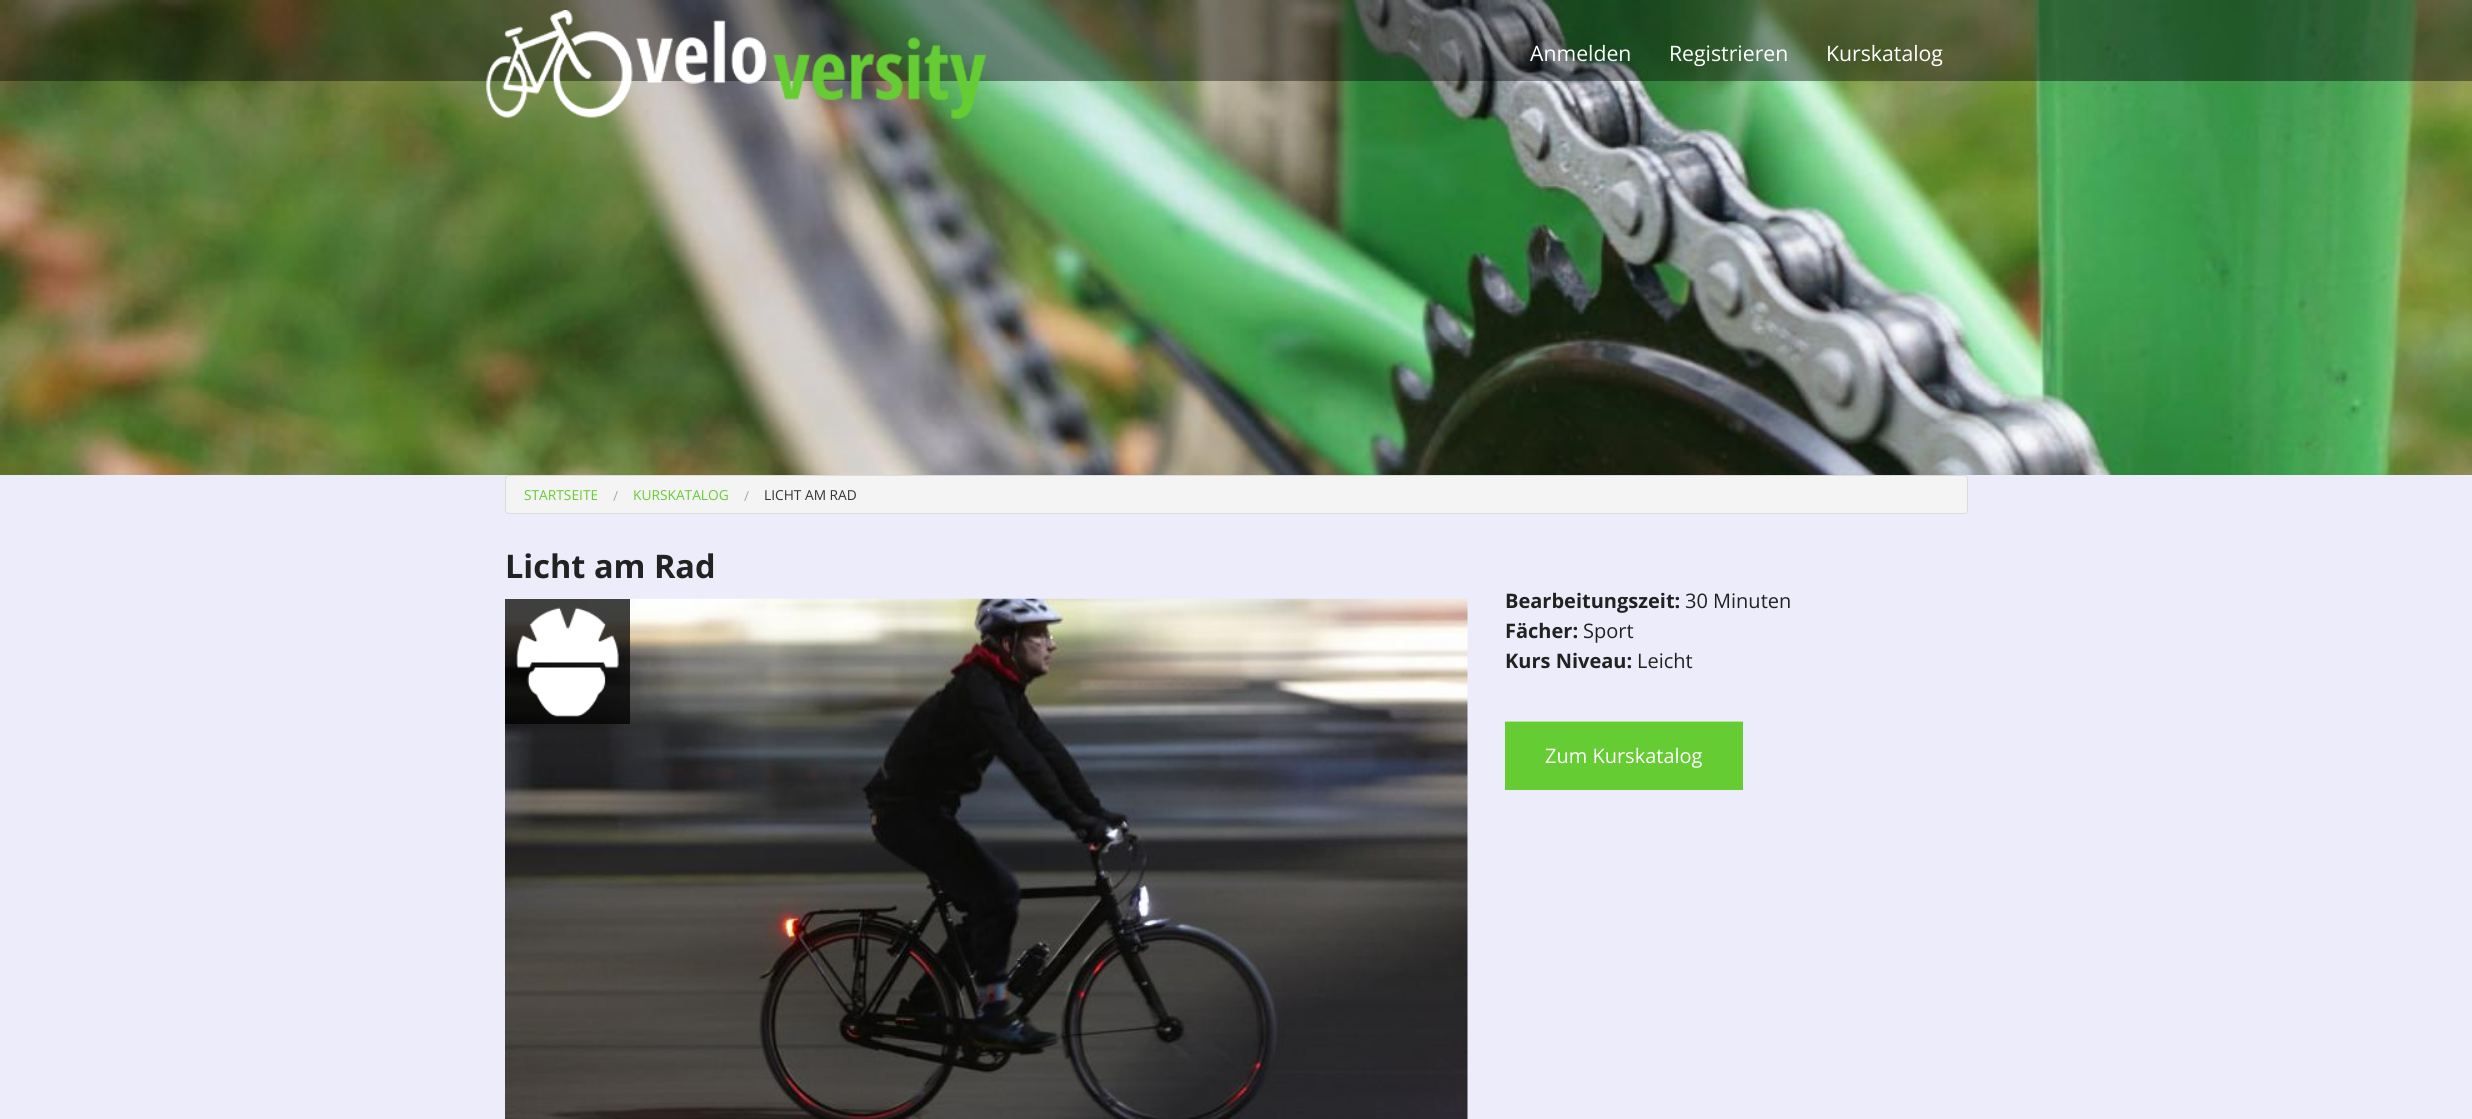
#include <cairo/cairo.h>
#include <math.h>
#include <stddef.h>


static void rounded_rect(cairo_t *cr, double x, double y, double w, double h, double r) {
  cairo_new_sub_path(cr);
  cairo_arc(cr, x + w - r, y + h - r, r, 0, M_PI / 2);
  cairo_arc(cr, x + r, y + h - r, r, M_PI / 2, M_PI);
  cairo_arc(cr, x + r, y + r, r, M_PI, 1.5 * M_PI);
  cairo_arc(cr, x + w - r, y + r, r, 1.5 * M_PI, 2 * M_PI);
  cairo_close_path(cr);
}

static void draw_image(cairo_t *cr, const char *path, double x, double y, double w, double h) {
  cairo_surface_t *image = cairo_image_surface_create_from_png(path);
  cairo_save(cr);
  cairo_set_source_surface(cr, image, x, y);
  cairo_rectangle(cr, x, y, w, h);
  cairo_fill(cr);
  cairo_restore(cr);
  cairo_surface_destroy(image);
}

static void draw(cairo_t *cr) {
  cairo_set_source_rgb(cr, 236 / 255.0, 236 / 255.0, 251 / 255.0);
  cairo_paint(cr);
  draw_image(cr, "images/1.png", 0, 0, 2472, 475);
  cairo_set_source_rgba(cr, 0, 0, 0, 0.4);
  cairo_rectangle(cr, 0, 0, 2472, 81);
  cairo_fill(cr);
  draw_image(cr, "images/2.png", 486, 10, 501, 109);
  cairo_set_source_rgb(cr, 244 / 255.0, 244 / 255.0, 244 / 255.0);
  rounded_rect(cr, 505.5, 475.5, 1462, 38, 3.5);
  cairo_fill_preserve(cr);
  cairo_set_source_rgb(cr, 220 / 255.0, 220 / 255.0, 220 / 255.0);
  cairo_set_line_width(cr, 1);
  cairo_stroke(cr);
  draw_image(cr, "images/3.png", 505, 598, 963, 521);
  cairo_set_source_rgba(cr, 0, 0, 0, 0.75);
  cairo_rectangle(cr, 505, 599, 125, 125);
  cairo_fill(cr);
  draw_image(cr, "images/4.png", 516, 607, 103, 110);
  cairo_set_source_rgb(cr, 102 / 255.0, 204 / 255.0, 51 / 255.0);
  cairo_rectangle(cr, 1505, 722, 238, 68);
  cairo_fill(cr);
  cairo_set_source_rgb(cr, 179 / 255.0, 230 / 255.0, 153 / 255.0);
  cairo_rectangle(cr, 1505, 721, 238, 1);
  cairo_fill(cr);
  cairo_select_font_face(cr, "Open Sans", CAIRO_FONT_SLANT_NORMAL, CAIRO_FONT_WEIGHT_NORMAL);
  cairo_set_font_size(cr, 21.25);
  cairo_set_source_rgb(cr, 1, 1, 1);
  cairo_move_to(cr, 1530, 61);
  cairo_show_text(cr, "Anmelden");
  cairo_move_to(cr, 1669, 61);
  cairo_show_text(cr, "Registrieren");
  cairo_move_to(cr, 1826, 61);
  cairo_show_text(cr, "Kurskatalog");
  cairo_set_font_size(cr, 13.75);
  cairo_set_source_rgb(cr, 102 / 255.0, 204 / 255.0, 51 / 255.0);
  cairo_move_to(cr, 524, 500);
  cairo_show_text(cr, "STARTSEITE");
  cairo_set_source_rgb(cr, 170 / 255.0, 170 / 255.0, 170 / 255.0);
  cairo_move_to(cr, 613, 501);
  cairo_show_text(cr, "/");
  cairo_set_source_rgb(cr, 102 / 255.0, 204 / 255.0, 51 / 255.0);
  cairo_move_to(cr, 633, 500);
  cairo_show_text(cr, "KURSKATALOG");
  cairo_set_source_rgb(cr, 170 / 255.0, 170 / 255.0, 170 / 255.0);
  cairo_move_to(cr, 744, 501);
  cairo_show_text(cr, "/");
  cairo_set_source_rgb(cr, 51 / 255.0, 51 / 255.0, 51 / 255.0);
  cairo_move_to(cr, 764, 500);
  cairo_show_text(cr, "LICHT AM RAD");
  cairo_select_font_face(cr, "Open Sans", CAIRO_FONT_SLANT_NORMAL, CAIRO_FONT_WEIGHT_BOLD);
  cairo_set_font_size(cr, 32.5);
  cairo_set_source_rgb(cr, 34 / 255.0, 34 / 255.0, 34 / 255.0);
  cairo_move_to(cr, 505, 578);
  cairo_show_text(cr, "Licht am Rad");
  cairo_set_font_size(cr, 20);
  cairo_move_to(cr, 1505, 608);
  cairo_show_text(cr, "Bearbeitungszeit:");
  cairo_select_font_face(cr, "Open Sans", CAIRO_FONT_SLANT_NORMAL, CAIRO_FONT_WEIGHT_NORMAL);
  cairo_move_to(cr, 1685, 608);
  cairo_show_text(cr, "30 Minuten");
  cairo_select_font_face(cr, "Open Sans", CAIRO_FONT_SLANT_NORMAL, CAIRO_FONT_WEIGHT_BOLD);
  cairo_move_to(cr, 1505, 638);
  cairo_show_text(cr, "Fächer:");
  cairo_select_font_face(cr, "Open Sans", CAIRO_FONT_SLANT_NORMAL, CAIRO_FONT_WEIGHT_NORMAL);
  cairo_move_to(cr, 1583, 638);
  cairo_show_text(cr, "Sport");
  cairo_select_font_face(cr, "Open Sans", CAIRO_FONT_SLANT_NORMAL, CAIRO_FONT_WEIGHT_BOLD);
  cairo_move_to(cr, 1505, 668);
  cairo_show_text(cr, "Kurs Niveau:");
  cairo_select_font_face(cr, "Open Sans", CAIRO_FONT_SLANT_NORMAL, CAIRO_FONT_WEIGHT_NORMAL);
  cairo_move_to(cr, 1637, 668);
  cairo_show_text(cr, "Leicht");
  cairo_set_source_rgb(cr, 1, 1, 1);
  cairo_move_to(cr, 1545, 763);
  cairo_show_text(cr, "Zum Kurskatalog");
}

int main(void) {
  cairo_surface_t *surface = cairo_image_surface_create(CAIRO_FORMAT_RGB24, 2472, 1119);
  cairo_t *cr = cairo_create(surface);
  cairo_font_options_t *options = cairo_font_options_create();
  cairo_font_options_set_hint_metrics(options, CAIRO_HINT_METRICS_OFF);
  cairo_font_options_set_hint_style(options, CAIRO_HINT_STYLE_NONE);
  cairo_set_font_options(cr, options);
  cairo_set_miter_limit(cr, 4);
  draw(cr);
  cairo_surface_write_to_png(surface, "out.png");
  cairo_font_options_destroy(options);
  cairo_destroy(cr);
  cairo_surface_destroy(surface);
  return 0;
}
